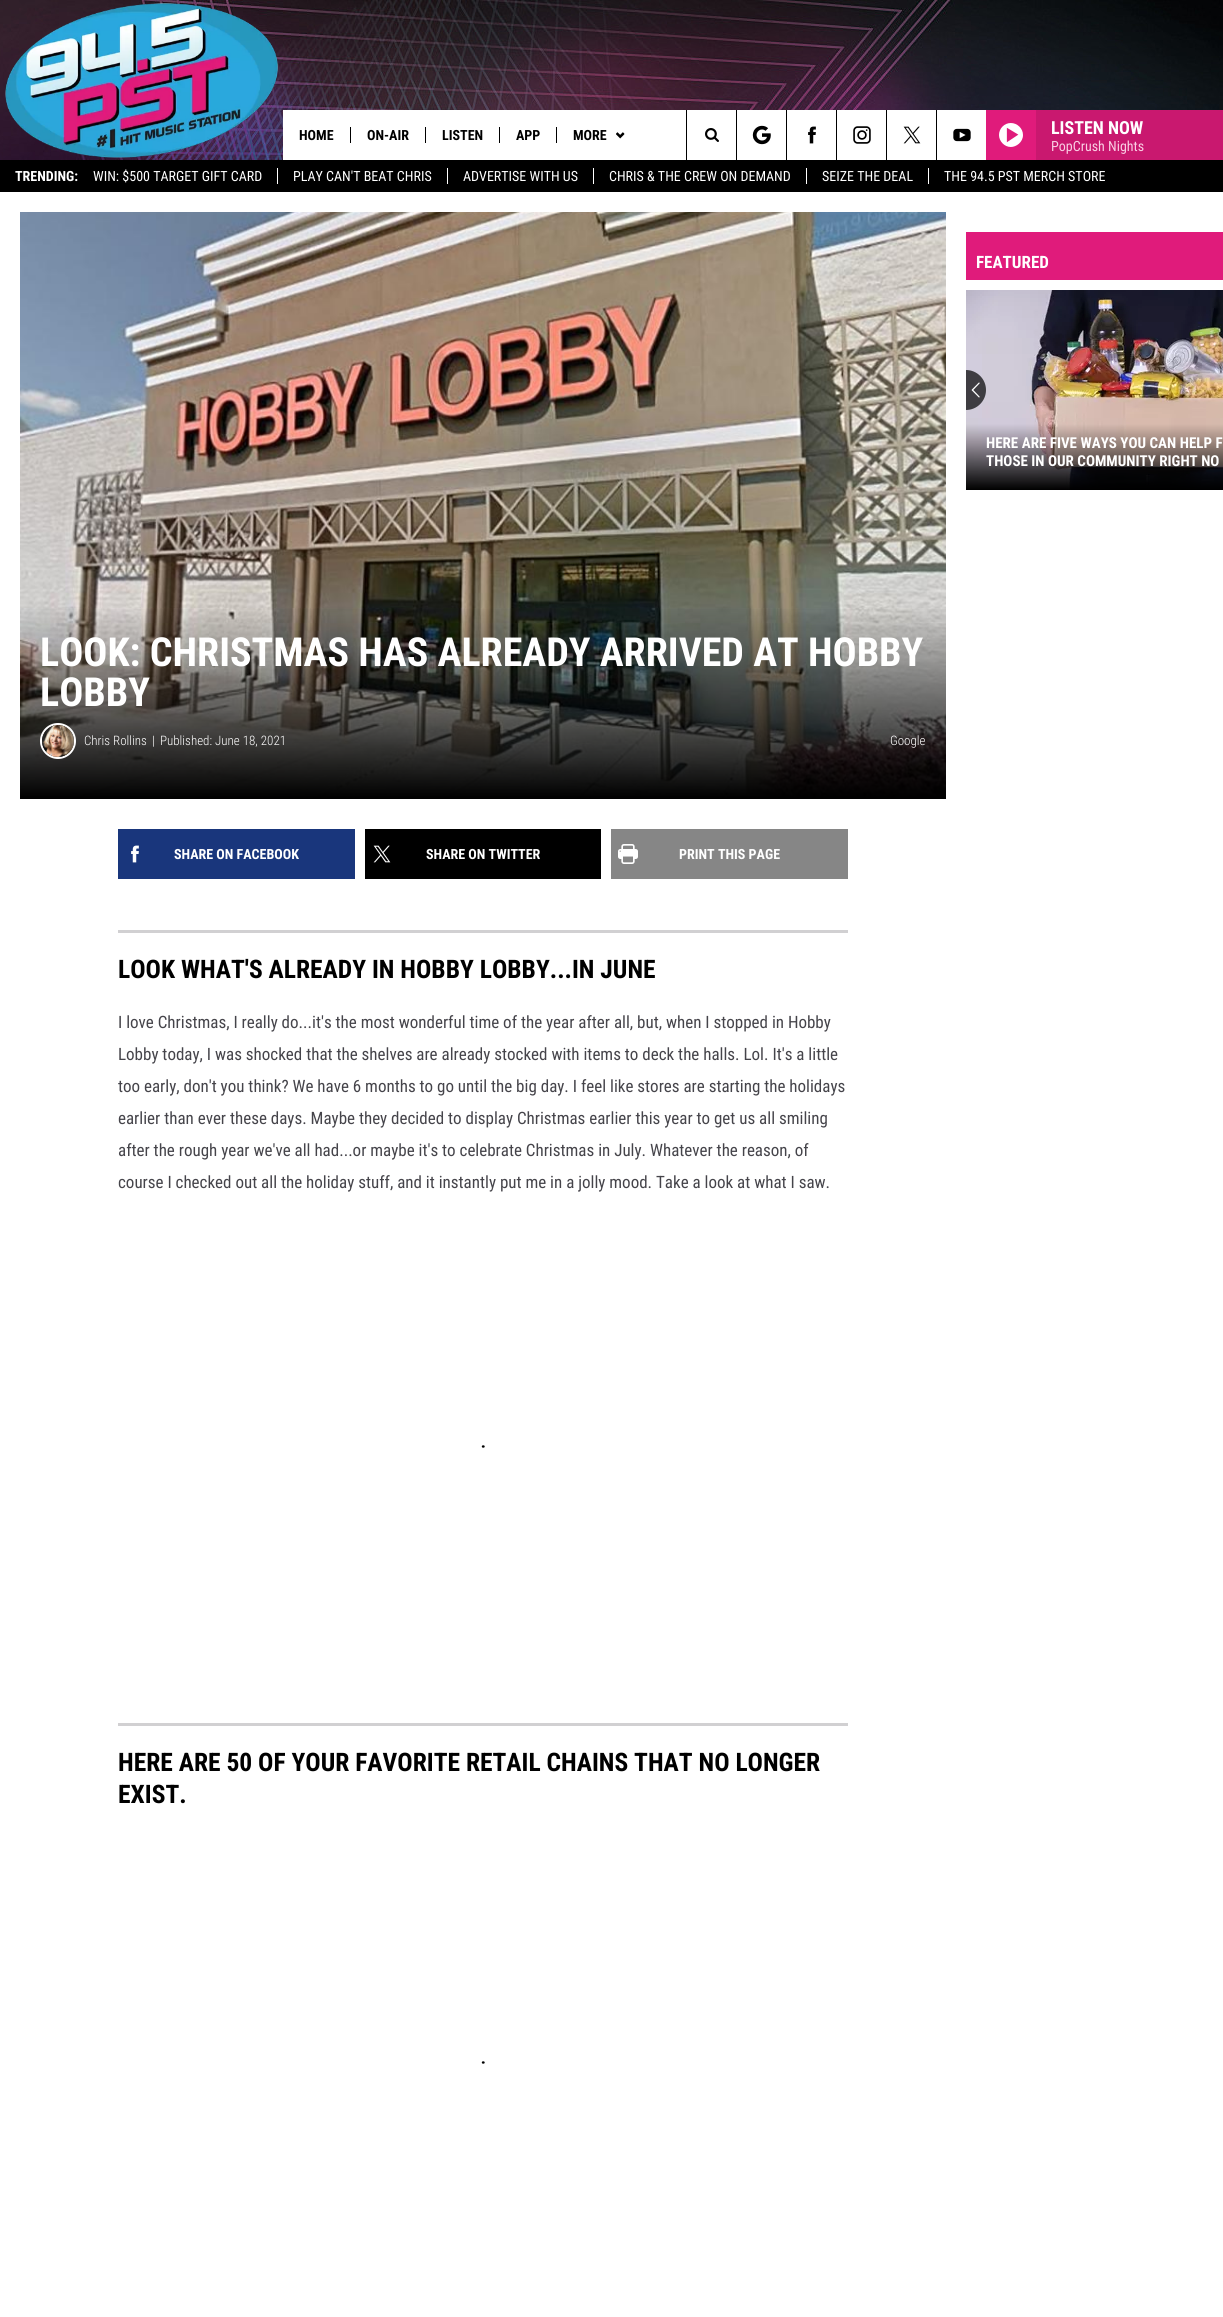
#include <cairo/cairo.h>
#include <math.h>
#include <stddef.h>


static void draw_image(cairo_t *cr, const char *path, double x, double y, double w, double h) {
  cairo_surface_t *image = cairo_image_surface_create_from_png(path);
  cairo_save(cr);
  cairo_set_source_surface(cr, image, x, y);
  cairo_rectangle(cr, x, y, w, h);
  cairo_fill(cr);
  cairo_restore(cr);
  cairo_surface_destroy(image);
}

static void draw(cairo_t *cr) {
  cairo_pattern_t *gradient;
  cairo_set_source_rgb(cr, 1, 1, 1);
  cairo_paint(cr);
  draw_image(cr, "images/1.png", 0, 0, 1223, 160);
  draw_image(cr, "images/2.png", 5, 3, 273, 155);
  cairo_set_source_rgb(cr, 1, 1, 1);
  cairo_rectangle(cr, 283, 110, 703, 50);
  cairo_fill(cr);
  cairo_set_source_rgb(cr, 0, 0, 0);
  cairo_rectangle(cr, 350, 127, 1, 16);
  cairo_fill(cr);
  cairo_rectangle(cr, 425, 127, 1, 16);
  cairo_fill(cr);
  cairo_rectangle(cr, 499, 127, 1, 16);
  cairo_fill(cr);
  cairo_rectangle(cr, 556, 127, 1, 16);
  cairo_fill(cr);
  draw_image(cr, "images/3.png", 616, 132, 9, 7);
  cairo_rectangle(cr, 686, 110, 1, 50);
  cairo_fill(cr);
  draw_image(cr, "images/4.png", 705, 128, 14, 14);
  cairo_rectangle(cr, 736, 110, 1, 50);
  cairo_fill(cr);
  draw_image(cr, "images/5.png", 752, 125, 19, 20);
  cairo_rectangle(cr, 786, 110, 1, 50);
  cairo_fill(cr);
  draw_image(cr, "images/6.png", 808, 126, 8, 18);
  cairo_rectangle(cr, 836, 110, 1, 50);
  cairo_fill(cr);
  draw_image(cr, "images/7.png", 853, 126, 18, 18);
  cairo_rectangle(cr, 886, 110, 1, 50);
  cairo_fill(cr);
  draw_image(cr, "images/8.png", 903, 126, 18, 18);
  cairo_rectangle(cr, 936, 110, 1, 50);
  cairo_fill(cr);
  draw_image(cr, "images/9.png", 953, 128, 18, 14);
  cairo_set_source_rgb(cr, 224 / 255.0, 27 / 255.0, 123 / 255.0);
  cairo_rectangle(cr, 986, 110, 50, 50);
  cairo_fill(cr);
  draw_image(cr, "images/10.png", 999, 123, 24, 24);
  cairo_set_source_rgb(cr, 201 / 255.0, 24 / 255.0, 111 / 255.0);
  cairo_rectangle(cr, 1036, 110, 187, 50);
  cairo_fill(cr);
  cairo_set_source_rgb(cr, 0, 0, 0);
  cairo_rectangle(cr, 0, 160, 1223, 32);
  cairo_fill(cr);
  cairo_set_source_rgb(cr, 1, 1, 1);
  cairo_rectangle(cr, 277, 168, 1, 16);
  cairo_fill(cr);
  cairo_rectangle(cr, 447, 168, 1, 16);
  cairo_fill(cr);
  cairo_rectangle(cr, 593, 168, 1, 16);
  cairo_fill(cr);
  cairo_rectangle(cr, 806, 168, 1, 16);
  cairo_fill(cr);
  cairo_rectangle(cr, 928, 168, 1, 16);
  cairo_fill(cr);
  cairo_set_source_rgb(cr, 224 / 255.0, 27 / 255.0, 123 / 255.0);
  cairo_rectangle(cr, 966, 232, 257, 48);
  cairo_fill(cr);
  draw_image(cr, "images/12.png", 966, 290, 257, 200);
  cairo_set_source_rgba(cr, 0, 0, 0, 0.7);
  cairo_new_path(cr);
  cairo_move_to(cr, 966, 370);
  cairo_curve_to(cr, 977, 370, 986, 379, 986, 390);
  cairo_curve_to(cr, 986, 401, 977, 410, 966, 410);
  cairo_close_path(cr);
  cairo_fill(cr);
  draw_image(cr, "images/11.png", 971, 382, 9, 16);
  draw_image(cr, "images/13.png", 20, 212, 926, 586);
  gradient = cairo_pattern_create_linear(483, 605, 483, 799);
  cairo_pattern_add_color_stop_rgba(gradient, 0, 0, 0, 0, 0);
  cairo_pattern_add_color_stop_rgba(gradient, 1, 0, 0, 0, 1);
  cairo_set_source(cr, gradient);
  cairo_pattern_destroy(gradient);
  cairo_rectangle(cr, 20, 609, 926, 190);
  cairo_fill(cr);
  cairo_arc(cr, 58, 741, 17, 0, 2 * M_PI);
  cairo_set_source_rgb(cr, 1, 1, 1);
  cairo_stroke(cr);
  draw_image(cr, "images/14.png", 42, 725, 32, 32);
  cairo_set_source_rgb(cr, 25 / 255.0, 54 / 255.0, 124 / 255.0);
  cairo_rectangle(cr, 118, 829, 237, 50);
  cairo_fill(cr);
  draw_image(cr, "images/15.png", 131, 845, 8, 18);
  cairo_set_source_rgb(cr, 0, 0, 0);
  cairo_rectangle(cr, 365, 829, 236, 50);
  cairo_fill(cr);
  draw_image(cr, "images/16.png", 373, 845, 18, 18);
  cairo_set_source_rgb(cr, 134 / 255.0, 134 / 255.0, 134 / 255.0);
  cairo_rectangle(cr, 611, 829, 237, 50);
  cairo_fill(cr);
  draw_image(cr, "images/17.png", 618, 844, 20, 20);
  cairo_set_source_rgb(cr, 209 / 255.0, 208 / 255.0, 210 / 255.0);
  cairo_rectangle(cr, 118, 930, 730, 3);
  cairo_fill(cr);
  cairo_new_path(cr);
  cairo_move_to(cr, 483, 1446.5);
  cairo_line_to(cr, 483.5, 1446.5);
  cairo_set_source_rgb(cr, 0, 0, 0);
  cairo_set_line_width(cr, 2.4);
  cairo_set_line_cap(cr, CAIRO_LINE_CAP_ROUND);
  cairo_stroke(cr);
  cairo_set_source_rgb(cr, 209 / 255.0, 208 / 255.0, 210 / 255.0);
  cairo_rectangle(cr, 118, 1723, 730, 3);
  cairo_fill(cr);
  cairo_new_path(cr);
  cairo_move_to(cr, 483, 2062.5);
  cairo_line_to(cr, 483.5, 2062.5);
  cairo_set_source_rgb(cr, 0, 0, 0);
  cairo_stroke(cr);
  cairo_select_font_face(cr, "Roboto Condensed", CAIRO_FONT_SLANT_NORMAL, CAIRO_FONT_WEIGHT_BOLD);
  cairo_set_font_size(cr, 14);
  cairo_move_to(cr, 299, 140);
  cairo_show_text(cr, "HOME");
  cairo_move_to(cr, 367, 140);
  cairo_show_text(cr, "ON-AIR");
  cairo_move_to(cr, 442, 140);
  cairo_show_text(cr, "LISTEN");
  cairo_move_to(cr, 516, 140);
  cairo_show_text(cr, "APP");
  cairo_move_to(cr, 573, 140);
  cairo_show_text(cr, "MORE");
  cairo_set_font_size(cr, 18);
  cairo_set_source_rgb(cr, 1, 1, 1);
  cairo_move_to(cr, 1051, 134);
  cairo_show_text(cr, "LISTEN NOW");
  cairo_select_font_face(cr, "Roboto Condensed", CAIRO_FONT_SLANT_NORMAL, CAIRO_FONT_WEIGHT_NORMAL);
  cairo_set_font_size(cr, 14);
  cairo_set_source_rgb(cr, 249 / 255.0, 206 / 255.0, 227 / 255.0);
  cairo_move_to(cr, 1051, 151);
  cairo_show_text(cr, "PopCrush Nights");
  cairo_select_font_face(cr, "Roboto Condensed", CAIRO_FONT_SLANT_NORMAL, CAIRO_FONT_WEIGHT_BOLD);
  cairo_set_source_rgb(cr, 1, 1, 1);
  cairo_move_to(cr, 15, 181);
  cairo_show_text(cr, "TRENDING:");
  cairo_select_font_face(cr, "Roboto Condensed", CAIRO_FONT_SLANT_NORMAL, CAIRO_FONT_WEIGHT_NORMAL);
  cairo_move_to(cr, 93, 181);
  cairo_show_text(cr, "WIN: $500 TARGET GIFT CARD");
  cairo_move_to(cr, 293, 181);
  cairo_show_text(cr, "PLAY CAN'T BEAT CHRIS");
  cairo_move_to(cr, 463, 181);
  cairo_show_text(cr, "ADVERTISE WITH US");
  cairo_move_to(cr, 609, 181);
  cairo_show_text(cr, "CHRIS & THE CREW ON DEMAND");
  cairo_move_to(cr, 822, 181);
  cairo_show_text(cr, "SEIZE THE DEAL");
  cairo_move_to(cr, 944, 181);
  cairo_show_text(cr, "THE 94.5 PST MERCH STORE");
  cairo_select_font_face(cr, "Roboto Condensed", CAIRO_FONT_SLANT_NORMAL, CAIRO_FONT_WEIGHT_BOLD);
  cairo_set_font_size(cr, 17);
  cairo_move_to(cr, 976, 268);
  cairo_show_text(cr, "FEATURED");
  cairo_set_font_size(cr, 15);
  cairo_move_to(cr, 986, 448);
  cairo_show_text(cr, "HERE ARE FIVE WAYS YOU CAN HELP F");
  cairo_move_to(cr, 986, 466);
  cairo_show_text(cr, "THOSE IN OUR COMMUNITY RIGHT NO");
  cairo_set_font_size(cr, 40);
  cairo_move_to(cr, 40, 666);
  cairo_show_text(cr, "LOOK: CHRISTMAS HAS ALREADY ARRIVED AT HOBBY");
  cairo_move_to(cr, 40, 706);
  cairo_show_text(cr, "LOBBY");
  cairo_select_font_face(cr, "Roboto Condensed Light", CAIRO_FONT_SLANT_NORMAL, CAIRO_FONT_WEIGHT_NORMAL);
  cairo_set_font_size(cr, 13);
  cairo_move_to(cr, 84, 745);
  cairo_show_text(cr, "Chris Rollins");
  cairo_move_to(cr, 152, 745);
  cairo_show_text(cr, "|");
  cairo_move_to(cr, 160, 745);
  cairo_show_text(cr, "Published: June 18, 2021");
  cairo_move_to(cr, 890, 745);
  cairo_show_text(cr, "Google");
  cairo_select_font_face(cr, "Roboto Condensed", CAIRO_FONT_SLANT_NORMAL, CAIRO_FONT_WEIGHT_BOLD);
  cairo_set_font_size(cr, 14);
  cairo_move_to(cr, 174, 859);
  cairo_show_text(cr, "SHARE ON FACEBOOK");
  cairo_move_to(cr, 426, 859);
  cairo_show_text(cr, "SHARE ON TWITTER");
  cairo_move_to(cr, 679, 859);
  cairo_show_text(cr, "PRINT THIS PAGE");
  cairo_set_font_size(cr, 25.5);
  cairo_set_source_rgb(cr, 0, 0, 0);
  cairo_move_to(cr, 118, 978);
  cairo_show_text(cr, "LOOK WHAT'S ALREADY IN HOBBY LOBBY...IN JUNE");
  cairo_select_font_face(cr, "Roboto Condensed", CAIRO_FONT_SLANT_NORMAL, CAIRO_FONT_WEIGHT_NORMAL);
  cairo_set_font_size(cr, 17);
  cairo_set_source_rgb(cr, 69 / 255.0, 68 / 255.0, 74 / 255.0);
  cairo_move_to(cr, 118, 1028);
  cairo_show_text(cr, "I love Christmas, I really do...it's the most wonderful time of the year after all, but, when I stopped in Hobby");
  cairo_move_to(cr, 118, 1060);
  cairo_show_text(cr, "Lobby today, I was shocked that the shelves are already stocked with items to deck the halls. Lol. It's a little");
  cairo_move_to(cr, 118, 1092);
  cairo_show_text(cr, "too early, don't you think? We have 6 months to go until the big day. I feel like stores are starting the holidays");
  cairo_move_to(cr, 118, 1124);
  cairo_show_text(cr, "earlier than ever these days. Maybe they decided to display Christmas earlier this year to get us all smiling");
  cairo_move_to(cr, 118, 1156);
  cairo_show_text(cr, "after the rough year we've all had...or maybe it's to celebrate Christmas in July. Whatever the reason, of");
  cairo_move_to(cr, 118, 1188);
  cairo_show_text(cr, "course I checked out all the holiday stuff, and it instantly put me in a jolly mood. Take a look at what I saw.");
  cairo_select_font_face(cr, "Roboto Condensed", CAIRO_FONT_SLANT_NORMAL, CAIRO_FONT_WEIGHT_BOLD);
  cairo_set_font_size(cr, 25.5);
  cairo_set_source_rgb(cr, 0, 0, 0);
  cairo_move_to(cr, 118, 1771);
  cairo_show_text(cr, "HERE ARE 50 OF YOUR FAVORITE RETAIL CHAINS THAT NO LONGER");
  cairo_move_to(cr, 118, 1803);
  cairo_show_text(cr, "EXIST.");
}

int main(void) {
  cairo_surface_t *surface = cairo_image_surface_create(CAIRO_FORMAT_RGB24, 1223, 2317);
  cairo_t *cr = cairo_create(surface);
  cairo_font_options_t *options = cairo_font_options_create();
  cairo_font_options_set_hint_metrics(options, CAIRO_HINT_METRICS_OFF);
  cairo_font_options_set_hint_style(options, CAIRO_HINT_STYLE_NONE);
  cairo_set_font_options(cr, options);
  cairo_set_miter_limit(cr, 4);
  draw(cr);
  cairo_surface_write_to_png(surface, "out.png");
  cairo_font_options_destroy(options);
  cairo_destroy(cr);
  cairo_surface_destroy(surface);
  return 0;
}
